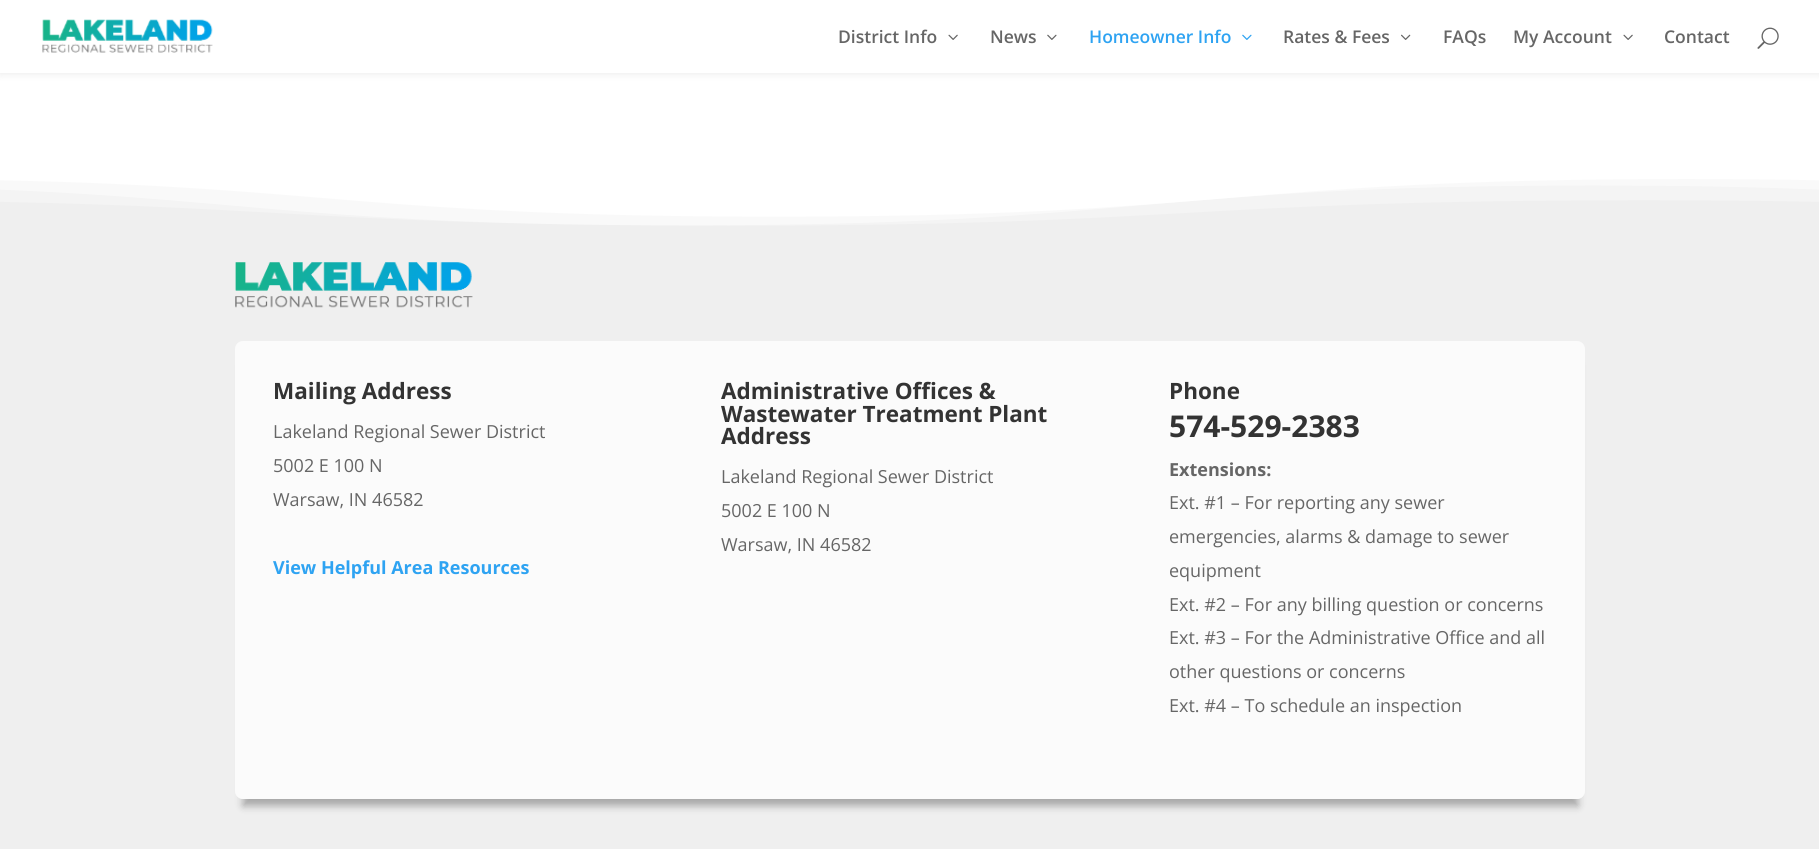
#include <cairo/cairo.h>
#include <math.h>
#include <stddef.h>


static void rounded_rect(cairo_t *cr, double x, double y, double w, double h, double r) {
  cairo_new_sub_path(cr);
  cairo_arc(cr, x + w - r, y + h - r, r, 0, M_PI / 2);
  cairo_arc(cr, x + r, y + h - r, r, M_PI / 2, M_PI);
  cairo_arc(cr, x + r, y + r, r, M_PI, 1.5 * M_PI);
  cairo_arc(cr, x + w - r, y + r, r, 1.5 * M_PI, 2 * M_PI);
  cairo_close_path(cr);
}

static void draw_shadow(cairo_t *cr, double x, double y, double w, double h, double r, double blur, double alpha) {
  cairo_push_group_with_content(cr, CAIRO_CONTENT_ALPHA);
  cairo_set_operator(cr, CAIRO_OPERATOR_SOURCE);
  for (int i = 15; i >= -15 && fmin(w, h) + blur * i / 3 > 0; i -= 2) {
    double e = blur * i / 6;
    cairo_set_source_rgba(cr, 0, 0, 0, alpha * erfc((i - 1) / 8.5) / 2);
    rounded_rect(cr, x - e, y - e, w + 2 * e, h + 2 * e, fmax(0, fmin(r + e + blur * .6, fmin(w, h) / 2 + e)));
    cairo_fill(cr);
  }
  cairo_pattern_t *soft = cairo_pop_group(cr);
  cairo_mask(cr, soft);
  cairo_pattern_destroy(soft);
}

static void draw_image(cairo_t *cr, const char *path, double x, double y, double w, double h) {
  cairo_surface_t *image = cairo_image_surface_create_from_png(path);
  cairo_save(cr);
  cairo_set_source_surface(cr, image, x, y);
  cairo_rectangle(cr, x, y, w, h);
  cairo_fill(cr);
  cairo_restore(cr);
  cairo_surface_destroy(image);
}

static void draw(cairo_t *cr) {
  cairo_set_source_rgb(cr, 1, 1, 1);
  cairo_paint(cr);
  cairo_set_source_rgb(cr, 0, 0, 0);
  draw_shadow(cr, 0, 0, 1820, 73, 0, 4.5, 0.1);
  cairo_set_source_rgb(cr, 1, 1, 1);
  cairo_rectangle(cr, 0, 0, 1819, 73);
  cairo_fill(cr);
  draw_image(cr, "images/1.png", 42, 19, 171, 34);
  draw_image(cr, "images/2.png", 948, 34, 10, 6);
  draw_image(cr, "images/3.png", 1047, 34, 10, 6);
  draw_image(cr, "images/4.png", 1242, 34, 10, 6);
  draw_image(cr, "images/5.png", 1401, 34, 10, 6);
  draw_image(cr, "images/2.png", 1623, 34, 10, 6);
  draw_image(cr, "images/6.png", 1757, 27, 22, 22);
  cairo_set_source_rgb(cr, 239 / 255.0, 239 / 255.0, 239 / 255.0);
  cairo_rectangle(cr, 0, 179, 1819, 670);
  cairo_fill(cr);
  draw_image(cr, "images/7.png", 0, 179, 1819, 47);
  draw_image(cr, "images/8.png", 235, 262, 238, 46);
  cairo_save(cr);
  cairo_set_fill_rule(cr, CAIRO_FILL_RULE_EVEN_ODD);
  cairo_new_path(cr);
  cairo_move_to(cr, 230, 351);
  cairo_line_to(cr, 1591, 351);
  cairo_line_to(cr, 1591, 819);
  cairo_line_to(cr, 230, 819);
  cairo_close_path(cr);
  cairo_move_to(cr, 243, 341);
  cairo_line_to(cr, 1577, 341);
  cairo_curve_to(cr, 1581.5, 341, 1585, 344.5, 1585, 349);
  cairo_line_to(cr, 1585, 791);
  cairo_curve_to(cr, 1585, 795.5, 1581.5, 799, 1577, 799);
  cairo_line_to(cr, 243, 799);
  cairo_curve_to(cr, 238.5, 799, 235, 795.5, 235, 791);
  cairo_line_to(cr, 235, 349);
  cairo_curve_to(cr, 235, 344.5, 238.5, 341, 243, 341);
  cairo_close_path(cr);
  cairo_clip(cr);
  cairo_set_source_rgb(cr, 0, 0, 0);
  draw_shadow(cr, 243, 364, 1335, 442, 0, 4, 0.3);
  cairo_restore(cr);
  cairo_set_source_rgba(cr, 1, 1, 1, 0.72);
  rounded_rect(cr, 235, 341, 1350, 458, 8);
  cairo_fill(cr);
  cairo_select_font_face(cr, "Open Sans SemiBold", CAIRO_FONT_SLANT_NORMAL, CAIRO_FONT_WEIGHT_NORMAL);
  cairo_set_font_size(cr, 17.5);
  cairo_set_source_rgb(cr, 102 / 255.0, 102 / 255.0, 102 / 255.0);
  cairo_move_to(cr, 838, 43);
  cairo_show_text(cr, "District Info");
  cairo_move_to(cr, 990, 43);
  cairo_show_text(cr, "News");
  cairo_set_source_rgb(cr, 46 / 255.0, 163 / 255.0, 242 / 255.0);
  cairo_move_to(cr, 1089, 43);
  cairo_show_text(cr, "Homeowner Info");
  cairo_set_source_rgb(cr, 102 / 255.0, 102 / 255.0, 102 / 255.0);
  cairo_move_to(cr, 1283, 43);
  cairo_show_text(cr, "Rates & Fees");
  cairo_move_to(cr, 1443, 43);
  cairo_show_text(cr, "FAQs");
  cairo_move_to(cr, 1513, 43);
  cairo_show_text(cr, "My Account");
  cairo_move_to(cr, 1664, 43);
  cairo_show_text(cr, "Contact");
  cairo_select_font_face(cr, "Open Sans", CAIRO_FONT_SLANT_NORMAL, CAIRO_FONT_WEIGHT_BOLD);
  cairo_set_font_size(cr, 22.5);
  cairo_set_source_rgb(cr, 51 / 255.0, 51 / 255.0, 51 / 255.0);
  cairo_move_to(cr, 273, 399);
  cairo_show_text(cr, "Mailing Address");
  cairo_select_font_face(cr, "Open Sans", CAIRO_FONT_SLANT_NORMAL, CAIRO_FONT_WEIGHT_NORMAL);
  cairo_set_font_size(cr, 18);
  cairo_set_source_rgb(cr, 102 / 255.0, 102 / 255.0, 102 / 255.0);
  cairo_move_to(cr, 273, 438);
  cairo_show_text(cr, "Lakeland Regional Sewer District");
  cairo_move_to(cr, 273, 472);
  cairo_show_text(cr, "5002 E 100 N");
  cairo_move_to(cr, 273, 506);
  cairo_show_text(cr, "Warsaw, IN 46582");
  cairo_select_font_face(cr, "Open Sans", CAIRO_FONT_SLANT_NORMAL, CAIRO_FONT_WEIGHT_BOLD);
  cairo_set_source_rgb(cr, 46 / 255.0, 163 / 255.0, 242 / 255.0);
  cairo_move_to(cr, 273, 574);
  cairo_show_text(cr, "View Helpful Area Resources");
  cairo_set_font_size(cr, 22.5);
  cairo_set_source_rgb(cr, 51 / 255.0, 51 / 255.0, 51 / 255.0);
  cairo_move_to(cr, 721, 399);
  cairo_show_text(cr, "Administrative Offices &");
  cairo_move_to(cr, 721, 422);
  cairo_show_text(cr, "Wastewater Treatment Plant");
  cairo_move_to(cr, 721, 444);
  cairo_show_text(cr, "Address");
  cairo_select_font_face(cr, "Open Sans", CAIRO_FONT_SLANT_NORMAL, CAIRO_FONT_WEIGHT_NORMAL);
  cairo_set_font_size(cr, 18);
  cairo_set_source_rgb(cr, 102 / 255.0, 102 / 255.0, 102 / 255.0);
  cairo_move_to(cr, 721, 483);
  cairo_show_text(cr, "Lakeland Regional Sewer District");
  cairo_move_to(cr, 721, 517);
  cairo_show_text(cr, "5002 E 100 N");
  cairo_move_to(cr, 721, 551);
  cairo_show_text(cr, "Warsaw, IN 46582");
  cairo_select_font_face(cr, "Open Sans", CAIRO_FONT_SLANT_NORMAL, CAIRO_FONT_WEIGHT_BOLD);
  cairo_set_font_size(cr, 22.5);
  cairo_set_source_rgb(cr, 51 / 255.0, 51 / 255.0, 51 / 255.0);
  cairo_move_to(cr, 1169, 399);
  cairo_show_text(cr, "Phone");
  cairo_set_font_size(cr, 30);
  cairo_move_to(cr, 1169, 437);
  cairo_show_text(cr, "574-529-2383");
  cairo_set_font_size(cr, 18);
  cairo_set_source_rgb(cr, 102 / 255.0, 102 / 255.0, 102 / 255.0);
  cairo_move_to(cr, 1169, 476);
  cairo_show_text(cr, "Extensions:");
  cairo_select_font_face(cr, "Open Sans", CAIRO_FONT_SLANT_NORMAL, CAIRO_FONT_WEIGHT_NORMAL);
  cairo_move_to(cr, 1169, 509);
  cairo_show_text(cr, "Ext. #1 – For reporting any sewer");
  cairo_move_to(cr, 1169, 543);
  cairo_show_text(cr, "emergencies, alarms & damage to sewer");
  cairo_move_to(cr, 1169, 577);
  cairo_show_text(cr, "equipment");
  cairo_move_to(cr, 1169, 611);
  cairo_show_text(cr, "Ext. #2 – For any billing question or concerns");
  cairo_move_to(cr, 1169, 644);
  cairo_show_text(cr, "Ext. #3 – For the Administrative Office and all");
  cairo_move_to(cr, 1169, 678);
  cairo_show_text(cr, "other questions or concerns");
  cairo_move_to(cr, 1169, 712);
  cairo_show_text(cr, "Ext. #4 – To schedule an inspection");
}

int main(void) {
  cairo_surface_t *surface = cairo_image_surface_create(CAIRO_FORMAT_RGB24, 1819, 849);
  cairo_t *cr = cairo_create(surface);
  cairo_font_options_t *options = cairo_font_options_create();
  cairo_font_options_set_hint_metrics(options, CAIRO_HINT_METRICS_OFF);
  cairo_font_options_set_hint_style(options, CAIRO_HINT_STYLE_NONE);
  cairo_set_font_options(cr, options);
  cairo_set_miter_limit(cr, 4);
  draw(cr);
  cairo_surface_write_to_png(surface, "out.png");
  cairo_font_options_destroy(options);
  cairo_destroy(cr);
  cairo_surface_destroy(surface);
  return 0;
}
